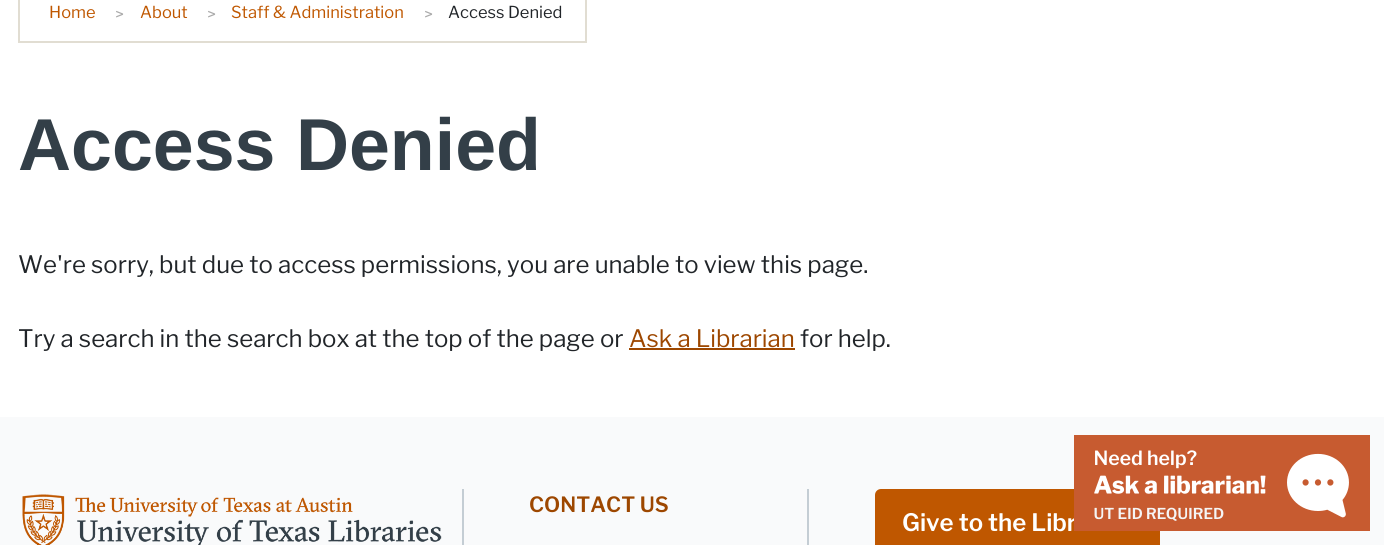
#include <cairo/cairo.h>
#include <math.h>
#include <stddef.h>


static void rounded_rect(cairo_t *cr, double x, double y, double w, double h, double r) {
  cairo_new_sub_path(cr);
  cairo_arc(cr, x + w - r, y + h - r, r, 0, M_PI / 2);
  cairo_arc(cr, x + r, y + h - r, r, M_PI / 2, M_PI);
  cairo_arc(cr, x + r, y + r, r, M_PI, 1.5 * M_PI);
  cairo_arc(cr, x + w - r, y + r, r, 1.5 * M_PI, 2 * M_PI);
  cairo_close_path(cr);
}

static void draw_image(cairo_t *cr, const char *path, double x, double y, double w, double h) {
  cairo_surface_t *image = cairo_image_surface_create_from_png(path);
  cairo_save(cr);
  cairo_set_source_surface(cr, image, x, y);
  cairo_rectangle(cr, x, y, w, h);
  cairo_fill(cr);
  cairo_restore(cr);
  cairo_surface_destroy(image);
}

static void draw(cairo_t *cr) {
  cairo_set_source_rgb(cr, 1, 1, 1);
  cairo_paint(cr);
  cairo_set_source_rgb(cr, 225 / 255.0, 221 / 255.0, 210 / 255.0);
  cairo_rectangle(cr, 18, 41, 387, 2);
  cairo_fill(cr);
  cairo_rectangle(cr, 18, 0, 2, 42);
  cairo_fill(cr);
  cairo_rectangle(cr, 585, 0, 2, 42);
  cairo_fill(cr);
  cairo_rectangle(cr, 405, 41, 182, 2);
  cairo_fill(cr);
  cairo_set_source_rgb(cr, 157 / 255.0, 71 / 255.0, 0);
  cairo_rectangle(cr, 629, 348, 166, 2);
  cairo_fill(cr);
  cairo_set_source_rgb(cr, 249 / 255.0, 250 / 255.0, 251 / 255.0);
  cairo_rectangle(cr, 0, 417, 1384, 128);
  cairo_fill(cr);
  draw_image(cr, "images/2.png", 22, 494, 420, 51);
  cairo_set_source_rgb(cr, 196 / 255.0, 205 / 255.0, 212 / 255.0);
  cairo_rectangle(cr, 462, 489, 2, 56);
  cairo_fill(cr);
  cairo_rectangle(cr, 807, 489, 2, 56);
  cairo_fill(cr);
  cairo_set_source_rgb(cr, 191 / 255.0, 87 / 255.0, 0);
  rounded_rect(cr, 876.5, 490.5, 282, 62, 4.5);
  cairo_fill_preserve(cr);
  cairo_set_line_width(cr, 3);
  cairo_stroke(cr);
  cairo_select_font_face(cr, "Libre Franklin", CAIRO_FONT_SLANT_NORMAL, CAIRO_FONT_WEIGHT_NORMAL);
  cairo_set_font_size(cr, 16.5);
  cairo_move_to(cr, 49, 18);
  cairo_show_text(cr, "Home");
  cairo_set_source_rgb(cr, 170 / 255.0, 170 / 255.0, 170 / 255.0);
  cairo_move_to(cr, 115, 20);
  cairo_show_text(cr, ">");
  cairo_set_source_rgb(cr, 191 / 255.0, 87 / 255.0, 0);
  cairo_move_to(cr, 140, 18);
  cairo_show_text(cr, "About");
  cairo_set_source_rgb(cr, 170 / 255.0, 170 / 255.0, 170 / 255.0);
  cairo_move_to(cr, 207, 20);
  cairo_show_text(cr, ">");
  cairo_set_source_rgb(cr, 191 / 255.0, 87 / 255.0, 0);
  cairo_move_to(cr, 231, 18);
  cairo_show_text(cr, "Staff & Administration");
  cairo_set_source_rgb(cr, 170 / 255.0, 170 / 255.0, 170 / 255.0);
  cairo_move_to(cr, 424, 20);
  cairo_show_text(cr, ">");
  cairo_set_source_rgb(cr, 33 / 255.0, 37 / 255.0, 41 / 255.0);
  cairo_move_to(cr, 448, 18);
  cairo_show_text(cr, "Access Denied");
  cairo_select_font_face(cr, "Liberation Sans", CAIRO_FONT_SLANT_NORMAL, CAIRO_FONT_WEIGHT_BOLD);
  cairo_set_font_size(cr, 73.5);
  cairo_set_source_rgb(cr, 51 / 255.0, 63 / 255.0, 72 / 255.0);
  cairo_move_to(cr, 18, 170);
  cairo_show_text(cr, "Access Denied");
  cairo_select_font_face(cr, "Libre Franklin", CAIRO_FONT_SLANT_NORMAL, CAIRO_FONT_WEIGHT_NORMAL);
  cairo_set_font_size(cr, 24);
  cairo_set_source_rgb(cr, 33 / 255.0, 37 / 255.0, 41 / 255.0);
  cairo_move_to(cr, 18, 273);
  cairo_show_text(cr, "We're sorry, but due to access permissions, you are unable to view this page.");
  cairo_move_to(cr, 18, 347);
  cairo_show_text(cr, "Try a search in the search box at the top of the page or");
  cairo_set_source_rgb(cr, 157 / 255.0, 71 / 255.0, 0);
  cairo_move_to(cr, 629, 347);
  cairo_show_text(cr, "Ask a Librarian");
  cairo_set_source_rgb(cr, 33 / 255.0, 37 / 255.0, 41 / 255.0);
  cairo_move_to(cr, 800, 347);
  cairo_show_text(cr, "for help.");
  cairo_select_font_face(cr, "Libre Franklin SemiBold", CAIRO_FONT_SLANT_NORMAL, CAIRO_FONT_WEIGHT_NORMAL);
  cairo_set_font_size(cr, 21);
  cairo_set_source_rgb(cr, 157 / 255.0, 71 / 255.0, 0);
  cairo_move_to(cr, 529, 512);
  cairo_show_text(cr, "CONTACT US");
  cairo_set_font_size(cr, 24);
  cairo_set_source_rgb(cr, 1, 1, 1);
  cairo_move_to(cr, 902, 531);
  cairo_show_text(cr, "Give to the Libr");
  draw_image(cr, "images/1.png", 1074, 435, 296, 96);
}

int main(void) {
  cairo_surface_t *surface = cairo_image_surface_create(CAIRO_FORMAT_RGB24, 1384, 545);
  cairo_t *cr = cairo_create(surface);
  cairo_font_options_t *options = cairo_font_options_create();
  cairo_font_options_set_hint_metrics(options, CAIRO_HINT_METRICS_OFF);
  cairo_font_options_set_hint_style(options, CAIRO_HINT_STYLE_NONE);
  cairo_set_font_options(cr, options);
  cairo_set_miter_limit(cr, 4);
  draw(cr);
  cairo_surface_write_to_png(surface, "out.png");
  cairo_font_options_destroy(options);
  cairo_destroy(cr);
  cairo_surface_destroy(surface);
  return 0;
}
